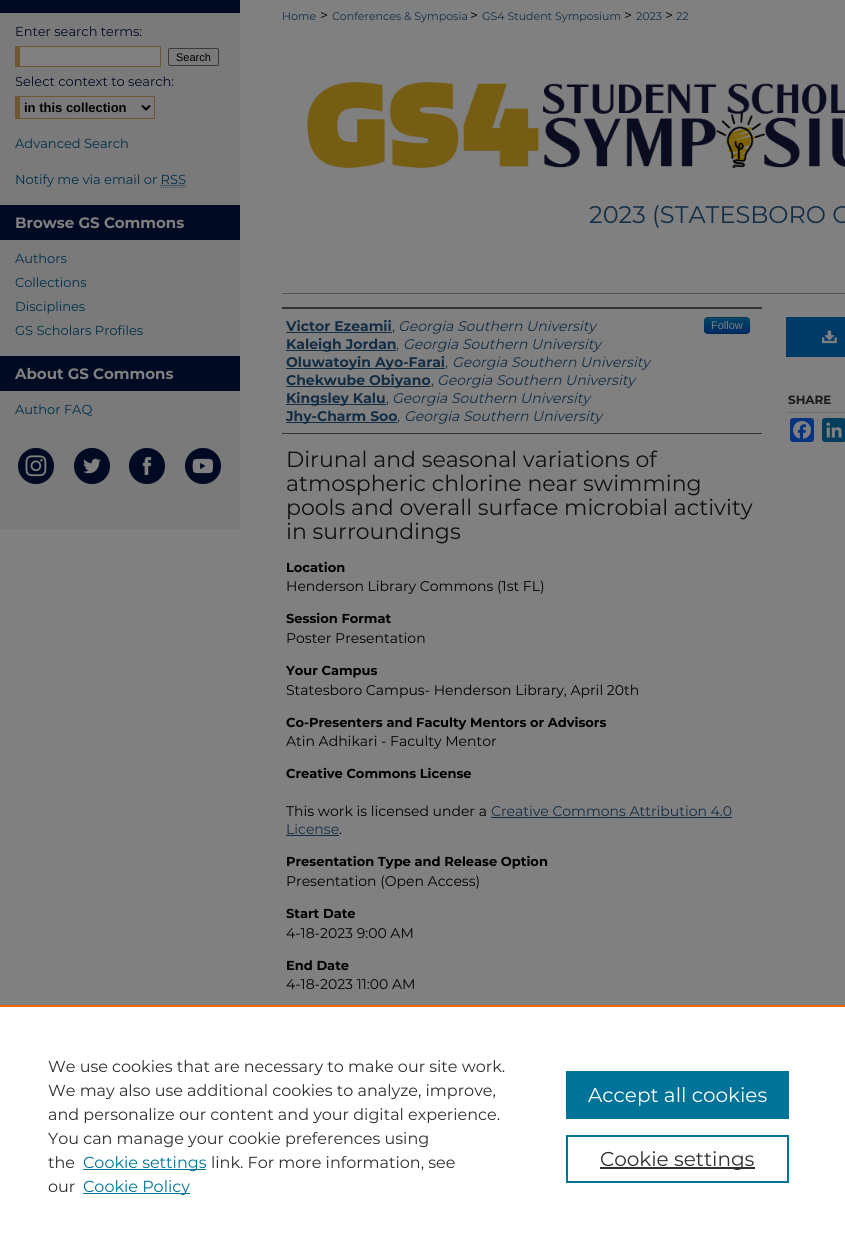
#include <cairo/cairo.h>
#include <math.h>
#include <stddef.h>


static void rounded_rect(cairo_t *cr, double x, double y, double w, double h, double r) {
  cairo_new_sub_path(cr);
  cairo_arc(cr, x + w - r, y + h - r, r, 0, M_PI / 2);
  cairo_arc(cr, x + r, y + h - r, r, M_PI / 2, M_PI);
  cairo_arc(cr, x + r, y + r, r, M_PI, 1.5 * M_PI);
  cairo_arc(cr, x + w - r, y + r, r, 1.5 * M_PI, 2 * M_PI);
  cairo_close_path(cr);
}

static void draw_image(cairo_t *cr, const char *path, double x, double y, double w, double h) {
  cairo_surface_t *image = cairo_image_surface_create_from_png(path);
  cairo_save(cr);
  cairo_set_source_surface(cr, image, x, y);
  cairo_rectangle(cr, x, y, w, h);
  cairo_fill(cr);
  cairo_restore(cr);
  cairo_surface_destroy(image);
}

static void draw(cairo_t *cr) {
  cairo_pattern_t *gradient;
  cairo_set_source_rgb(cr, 128 / 255.0, 128 / 255.0, 128 / 255.0);
  cairo_paint(cr);
  cairo_set_source_rgb(cr, 122 / 255.0, 122 / 255.0, 122 / 255.0);
  cairo_rectangle(cr, 0, 13, 240, 516);
  cairo_fill(cr);
  cairo_set_source_rgb(cr, 0, 10 / 255.0, 34 / 255.0);
  cairo_rectangle(cr, 0, 0, 240, 13);
  cairo_fill(cr);
  cairo_set_source_rgb(cr, 128 / 255.0, 128 / 255.0, 128 / 255.0);
  cairo_rectangle(cr, 20, 47, 140, 19);
  cairo_fill(cr);
  cairo_set_source_rgb(cr, 109 / 255.0, 86 / 255.0, 50 / 255.0);
  cairo_rectangle(cr, 15, 46, 146, 1);
  cairo_fill(cr);
  cairo_rectangle(cr, 160, 46, 1, 21);
  cairo_fill(cr);
  cairo_rectangle(cr, 15, 66, 146, 1);
  cairo_fill(cr);
  cairo_rectangle(cr, 15, 46, 5, 21);
  cairo_fill(cr);
  rounded_rect(cr, 168.5, 48.5, 50, 17, 1.5);
  cairo_set_source_rgb(cr, 59 / 255.0, 59 / 255.0, 59 / 255.0);
  cairo_set_line_width(cr, 1);
  cairo_stroke(cr);
  cairo_set_source_rgb(cr, 109 / 255.0, 86 / 255.0, 50 / 255.0);
  cairo_rectangle(cr, 15, 96, 140, 1);
  cairo_fill(cr);
  cairo_rectangle(cr, 154, 96, 1, 23);
  cairo_fill(cr);
  cairo_rectangle(cr, 15, 118, 140, 1);
  cairo_fill(cr);
  cairo_rectangle(cr, 15, 96, 5, 23);
  cairo_fill(cr);
  cairo_new_path(cr);
  cairo_move_to(cr, 142, 105.5);
  cairo_line_to(cr, 146, 109.5);
  cairo_line_to(cr, 150, 105.5);
  cairo_set_source_rgb(cr, 0, 0, 0);
  cairo_set_line_width(cr, 2);
  cairo_stroke(cr);
  cairo_new_path(cr);
  cairo_move_to(cr, 160.5, 185.5);
  cairo_line_to(cr, 186, 185.5);
  cairo_set_source_rgb(cr, 0, 47 / 255.0, 72 / 255.0);
  cairo_set_line_width(cr, 1);
  cairo_set_dash(cr, (double[]){1, 1}, 2, 0);
  cairo_stroke(cr);
  cairo_new_path(cr);
  cairo_move_to(cr, 161, 187.5);
  cairo_line_to(cr, 186, 187.5);
  cairo_set_source_rgb(cr, 77 / 255.0, 77 / 255.0, 77 / 255.0);
  cairo_stroke(cr);
  cairo_set_source_rgb(cr, 0, 10 / 255.0, 34 / 255.0);
  cairo_rectangle(cr, 0, 205, 240, 35);
  cairo_fill(cr);
  cairo_rectangle(cr, 0, 356, 240, 35);
  cairo_fill(cr);
  draw_image(cr, "images/1.png", 18, 448, 36, 36);
  draw_image(cr, "images/2.png", 74, 448, 36, 36);
  draw_image(cr, "images/3.png", 129, 448, 36, 36);
  draw_image(cr, "images/4.png", 185, 448, 36, 36);
  draw_image(cr, "images/5.png", 307, 82, 538, 86);
  cairo_set_source_rgb(cr, 85 / 255.0, 85 / 255.0, 85 / 255.0);
  cairo_rectangle(cr, 282, 293, 563, 1);
  cairo_fill(cr);
  cairo_set_source_rgb(cr, 51 / 255.0, 51 / 255.0, 51 / 255.0);
  cairo_rectangle(cr, 282, 307, 480, 2);
  cairo_fill(cr);
  cairo_rectangle(cr, 282, 433, 480, 1);
  cairo_fill(cr);
  cairo_set_source_rgb(cr, 19 / 255.0, 45 / 255.0, 68 / 255.0);
  cairo_rectangle(cr, 286, 332, 106, 1);
  cairo_fill(cr);
  cairo_set_source_rgb(cr, 0, 58 / 255.0, 102 / 255.0);
  rounded_rect(cr, 704, 317, 46, 17, 4);
  cairo_fill(cr);
  cairo_save(cr);
  rounded_rect(cr, 704, 317, 46, 17, 4);
  cairo_clip(cr);
  gradient = cairo_pattern_create_linear(727, 318, 727, 333);
  cairo_pattern_add_color_stop_rgba(gradient, 0, 0, 68 / 255.0, 102 / 255.0, 1);
  cairo_pattern_add_color_stop_rgba(gradient, 1, 0, 43 / 255.0, 102 / 255.0, 1);
  cairo_set_source(cr, gradient);
  cairo_pattern_destroy(gradient);
  cairo_rectangle(cr, 704, 318, 46, 15);
  cairo_fill(cr);
  cairo_restore(cr);
  cairo_set_source_rgba(cr, 128 / 255.0, 128 / 255.0, 128 / 255.0, 0.2);
  cairo_new_path(cr);
  cairo_move_to(cr, 708, 319);
  cairo_line_to(cr, 733, 319);
  cairo_curve_to(cr, 747, 319, 749, 315, 749, 330);
  cairo_curve_to(cr, 749, 319, 752, 318, 740, 318);
  cairo_line_to(cr, 714, 318);
  cairo_curve_to(cr, 707, 318, 705, 317, 705, 324);
  cairo_line_to(cr, 705, 331);
  cairo_curve_to(cr, 705, 328, 704, 319, 708, 319);
  cairo_close_path(cr);
  cairo_fill(cr);
  cairo_new_path(cr);
  cairo_move_to(cr, 748.5, 332.5);
  cairo_curve_to(cr, 748, 333, 747, 333.5, 746, 333.5);
  cairo_line_to(cr, 708, 333.5);
  cairo_curve_to(cr, 707, 333.5, 706, 333, 705.5, 332.5);
  cairo_set_source_rgba(cr, 0, 0, 0, 0.25);
  cairo_set_dash(cr, NULL, 0, 0);
  cairo_stroke(cr);
  cairo_new_path(cr);
  cairo_move_to(cr, 705.5, 332.5);
  cairo_curve_to(cr, 704, 330.5, 704.5, 327.5, 704.5, 325.5);
  cairo_curve_to(cr, 704.5, 316.5, 705, 317.5, 714.5, 317.5);
  cairo_line_to(cr, 739.5, 317.5);
  cairo_curve_to(cr, 749, 317.5, 749.5, 316.5, 749.5, 325.5);
  cairo_curve_to(cr, 749.5, 327.5, 750, 330.5, 748.5, 332.5);
  cairo_set_source_rgba(cr, 0, 0, 0, 0.1);
  cairo_stroke(cr);
  cairo_set_source_rgb(cr, 19 / 255.0, 45 / 255.0, 68 / 255.0);
  cairo_rectangle(cr, 286, 350, 110, 1);
  cairo_fill(cr);
  cairo_rectangle(cr, 286, 368, 159, 1);
  cairo_fill(cr);
  cairo_rectangle(cr, 286, 386, 145, 1);
  cairo_fill(cr);
  cairo_rectangle(cr, 286, 404, 100, 1);
  cairo_fill(cr);
  cairo_rectangle(cr, 286, 422, 111, 1);
  cairo_fill(cr);
  cairo_rectangle(cr, 491, 817, 241, 1);
  cairo_fill(cr);
  cairo_rectangle(cr, 286, 835, 53, 1);
  cairo_fill(cr);
  cairo_set_source_rgb(cr, 0, 58 / 255.0, 102 / 255.0);
  cairo_rectangle(cr, 786, 317, 59, 40);
  cairo_fill(cr);
  draw_image(cr, "images/6.png", 822, 330, 15, 14);
  cairo_set_source_rgb(cr, 111 / 255.0, 111 / 255.0, 111 / 255.0);
  cairo_rectangle(cr, 788, 412, 57, 1);
  cairo_fill(cr);
  cairo_set_source_rgb(cr, 4 / 255.0, 51 / 255.0, 128 / 255.0);
  rounded_rect(cr, 790, 418, 24, 24, 3);
  cairo_fill(cr);
  draw_image(cr, "images/7.png", 793, 421, 18, 18);
  cairo_set_source_rgb(cr, 0, 62 / 255.0, 91 / 255.0);
  rounded_rect(cr, 822, 418, 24, 24, 3);
  cairo_fill(cr);
  draw_image(cr, "images/8.png", 826, 422, 16, 16);
  cairo_set_source_rgb(cr, 1, 1, 1);
  cairo_rectangle(cr, 0, 1007, 845, 240);
  cairo_fill(cr);
  cairo_set_source_rgb(cr, 235 / 255.0, 101 / 255.0, 0);
  cairo_rectangle(cr, 0, 1005, 845, 2);
  cairo_fill(cr);
  cairo_set_source_rgb(cr, 0, 115 / 255.0, 152 / 255.0);
  cairo_rectangle(cr, 83, 1169, 123, 1);
  cairo_fill(cr);
  cairo_rectangle(cr, 83, 1193, 107, 1);
  cairo_fill(cr);
  cairo_rectangle(cr, 566, 1071, 223, 48);
  cairo_fill(cr);
  cairo_rectangle(cr, 567, 1136, 221, 46);
  cairo_set_line_width(cr, 2);
  cairo_stroke(cr);
  cairo_set_source_rgb(cr, 46 / 255.0, 46 / 255.0, 46 / 255.0);
  cairo_rectangle(cr, 600, 1167, 155, 2);
  cairo_fill(cr);
  cairo_select_font_face(cr, "Montserrat", CAIRO_FONT_SLANT_NORMAL, CAIRO_FONT_WEIGHT_NORMAL);
  cairo_set_font_size(cr, 13);
  cairo_set_source_rgb(cr, 0, 10 / 255.0, 34 / 255.0);
  cairo_move_to(cr, 15, 36);
  cairo_show_text(cr, "Enter search terms:");
  cairo_select_font_face(cr, "Liberation Sans", CAIRO_FONT_SLANT_NORMAL, CAIRO_FONT_WEIGHT_NORMAL);
  cairo_set_font_size(cr, 11);
  cairo_set_source_rgb(cr, 0, 0, 0);
  cairo_move_to(cr, 176, 61);
  cairo_show_text(cr, "Search");
  cairo_select_font_face(cr, "Montserrat", CAIRO_FONT_SLANT_NORMAL, CAIRO_FONT_WEIGHT_NORMAL);
  cairo_set_font_size(cr, 13);
  cairo_set_source_rgb(cr, 0, 10 / 255.0, 34 / 255.0);
  cairo_move_to(cr, 15, 86);
  cairo_show_text(cr, "Select context to search:");
  cairo_select_font_face(cr, "Liberation Sans", CAIRO_FONT_SLANT_NORMAL, CAIRO_FONT_WEIGHT_BOLD);
  cairo_set_source_rgb(cr, 0, 0, 0);
  cairo_move_to(cr, 24, 112);
  cairo_show_text(cr, "in this collection");
  cairo_select_font_face(cr, "Montserrat", CAIRO_FONT_SLANT_NORMAL, CAIRO_FONT_WEIGHT_NORMAL);
  cairo_set_source_rgb(cr, 0, 47 / 255.0, 72 / 255.0);
  cairo_move_to(cr, 15, 148);
  cairo_show_text(cr, "Advanced Search");
  cairo_move_to(cr, 15, 184);
  cairo_show_text(cr, "Notify me via email or RSS");
  cairo_select_font_face(cr, "Montserrat", CAIRO_FONT_SLANT_NORMAL, CAIRO_FONT_WEIGHT_BOLD);
  cairo_set_font_size(cr, 15);
  cairo_set_source_rgb(cr, 128 / 255.0, 128 / 255.0, 128 / 255.0);
  cairo_move_to(cr, 15, 228);
  cairo_show_text(cr, "Browse GS Commons");
  cairo_select_font_face(cr, "Montserrat", CAIRO_FONT_SLANT_NORMAL, CAIRO_FONT_WEIGHT_NORMAL);
  cairo_set_font_size(cr, 13);
  cairo_set_source_rgb(cr, 0, 47 / 255.0, 72 / 255.0);
  cairo_move_to(cr, 15, 263);
  cairo_show_text(cr, "Authors");
  cairo_move_to(cr, 15, 287);
  cairo_show_text(cr, "Collections");
  cairo_move_to(cr, 15, 311);
  cairo_show_text(cr, "Disciplines");
  cairo_move_to(cr, 15, 335);
  cairo_show_text(cr, "GS Scholars Profiles");
  cairo_select_font_face(cr, "Montserrat", CAIRO_FONT_SLANT_NORMAL, CAIRO_FONT_WEIGHT_BOLD);
  cairo_set_font_size(cr, 15);
  cairo_set_source_rgb(cr, 128 / 255.0, 128 / 255.0, 128 / 255.0);
  cairo_move_to(cr, 15, 379);
  cairo_show_text(cr, "About GS Commons");
  cairo_select_font_face(cr, "Montserrat", CAIRO_FONT_SLANT_NORMAL, CAIRO_FONT_WEIGHT_NORMAL);
  cairo_set_font_size(cr, 13);
  cairo_set_source_rgb(cr, 0, 47 / 255.0, 72 / 255.0);
  cairo_move_to(cr, 15, 414);
  cairo_show_text(cr, "Author FAQ");
  cairo_set_font_size(cr, 11);
  cairo_set_source_rgb(cr, 19 / 255.0, 45 / 255.0, 68 / 255.0);
  cairo_move_to(cr, 282, 20);
  cairo_show_text(cr, "Home");
  cairo_set_font_size(cr, 14);
  cairo_set_source_rgb(cr, 0, 0, 0);
  cairo_move_to(cr, 320, 20);
  cairo_show_text(cr, ">");
  cairo_set_font_size(cr, 11);
  cairo_set_source_rgb(cr, 19 / 255.0, 45 / 255.0, 68 / 255.0);
  cairo_move_to(cr, 332, 20);
  cairo_show_text(cr, "Conferences & Symposia");
  cairo_set_font_size(cr, 14);
  cairo_set_source_rgb(cr, 0, 0, 0);
  cairo_move_to(cr, 470, 20);
  cairo_show_text(cr, ">");
  cairo_set_font_size(cr, 11);
  cairo_set_source_rgb(cr, 19 / 255.0, 45 / 255.0, 68 / 255.0);
  cairo_move_to(cr, 482, 20);
  cairo_show_text(cr, "GS4 Student Symposium");
  cairo_set_font_size(cr, 14);
  cairo_set_source_rgb(cr, 0, 0, 0);
  cairo_move_to(cr, 624, 20);
  cairo_show_text(cr, ">");
  cairo_set_font_size(cr, 11);
  cairo_set_source_rgb(cr, 19 / 255.0, 45 / 255.0, 68 / 255.0);
  cairo_move_to(cr, 636, 20);
  cairo_show_text(cr, "2023");
  cairo_set_font_size(cr, 14);
  cairo_set_source_rgb(cr, 0, 0, 0);
  cairo_move_to(cr, 665, 20);
  cairo_show_text(cr, ">");
  cairo_set_font_size(cr, 11);
  cairo_set_source_rgb(cr, 19 / 255.0, 45 / 255.0, 68 / 255.0);
  cairo_move_to(cr, 676, 20);
  cairo_show_text(cr, "22");
  cairo_set_font_size(cr, 24);
  cairo_move_to(cr, 589, 223);
  cairo_show_text(cr, "2023 (STATESBORO C");
  cairo_select_font_face(cr, "Montserrat", CAIRO_FONT_SLANT_NORMAL, CAIRO_FONT_WEIGHT_BOLD);
  cairo_set_font_size(cr, 14);
  cairo_move_to(cr, 286, 331);
  cairo_show_text(cr, "Victor Ezeamii");
  cairo_select_font_face(cr, "Montserrat", CAIRO_FONT_SLANT_NORMAL, CAIRO_FONT_WEIGHT_NORMAL);
  cairo_move_to(cr, 392, 331);
  cairo_show_text(cr, ",");
  cairo_select_font_face(cr, "Montserrat", CAIRO_FONT_SLANT_ITALIC, CAIRO_FONT_WEIGHT_NORMAL);
  cairo_move_to(cr, 398, 331);
  cairo_show_text(cr, "Georgia Southern University");
  cairo_select_font_face(cr, "Liberation Sans", CAIRO_FONT_SLANT_NORMAL, CAIRO_FONT_WEIGHT_NORMAL);
  cairo_set_font_size(cr, 11);
  cairo_set_source_rgb(cr, 128 / 255.0, 128 / 255.0, 128 / 255.0);
  cairo_move_to(cr, 711, 329);
  cairo_show_text(cr, "Follow");
  cairo_select_font_face(cr, "Montserrat", CAIRO_FONT_SLANT_NORMAL, CAIRO_FONT_WEIGHT_BOLD);
  cairo_set_font_size(cr, 14);
  cairo_set_source_rgb(cr, 19 / 255.0, 45 / 255.0, 68 / 255.0);
  cairo_move_to(cr, 286, 349);
  cairo_show_text(cr, "Kaleigh Jordan");
  cairo_select_font_face(cr, "Montserrat", CAIRO_FONT_SLANT_NORMAL, CAIRO_FONT_WEIGHT_NORMAL);
  cairo_move_to(cr, 396, 349);
  cairo_show_text(cr, ",");
  cairo_select_font_face(cr, "Montserrat", CAIRO_FONT_SLANT_ITALIC, CAIRO_FONT_WEIGHT_NORMAL);
  cairo_move_to(cr, 403, 349);
  cairo_show_text(cr, "Georgia Southern University");
  cairo_select_font_face(cr, "Montserrat", CAIRO_FONT_SLANT_NORMAL, CAIRO_FONT_WEIGHT_BOLD);
  cairo_move_to(cr, 286, 367);
  cairo_show_text(cr, "Oluwatoyin Ayo-Farai");
  cairo_select_font_face(cr, "Montserrat", CAIRO_FONT_SLANT_NORMAL, CAIRO_FONT_WEIGHT_NORMAL);
  cairo_move_to(cr, 445, 367);
  cairo_show_text(cr, ",");
  cairo_select_font_face(cr, "Montserrat", CAIRO_FONT_SLANT_ITALIC, CAIRO_FONT_WEIGHT_NORMAL);
  cairo_move_to(cr, 452, 367);
  cairo_show_text(cr, "Georgia Southern University");
  cairo_select_font_face(cr, "Montserrat", CAIRO_FONT_SLANT_NORMAL, CAIRO_FONT_WEIGHT_BOLD);
  cairo_move_to(cr, 286, 385);
  cairo_show_text(cr, "Chekwube Obiyano");
  cairo_select_font_face(cr, "Montserrat", CAIRO_FONT_SLANT_NORMAL, CAIRO_FONT_WEIGHT_NORMAL);
  cairo_move_to(cr, 431, 385);
  cairo_show_text(cr, ",");
  cairo_select_font_face(cr, "Montserrat", CAIRO_FONT_SLANT_ITALIC, CAIRO_FONT_WEIGHT_NORMAL);
  cairo_move_to(cr, 437, 385);
  cairo_show_text(cr, "Georgia Southern University");
  cairo_select_font_face(cr, "Montserrat", CAIRO_FONT_SLANT_NORMAL, CAIRO_FONT_WEIGHT_BOLD);
  cairo_move_to(cr, 286, 403);
  cairo_show_text(cr, "Kingsley Kalu");
  cairo_select_font_face(cr, "Montserrat", CAIRO_FONT_SLANT_NORMAL, CAIRO_FONT_WEIGHT_NORMAL);
  cairo_move_to(cr, 386, 403);
  cairo_show_text(cr, ",");
  cairo_select_font_face(cr, "Montserrat", CAIRO_FONT_SLANT_ITALIC, CAIRO_FONT_WEIGHT_NORMAL);
  cairo_move_to(cr, 392, 403);
  cairo_show_text(cr, "Georgia Southern University");
  cairo_select_font_face(cr, "Montserrat", CAIRO_FONT_SLANT_NORMAL, CAIRO_FONT_WEIGHT_BOLD);
  cairo_move_to(cr, 286, 421);
  cairo_show_text(cr, "Jhy-Charm Soo");
  cairo_select_font_face(cr, "Montserrat", CAIRO_FONT_SLANT_NORMAL, CAIRO_FONT_WEIGHT_NORMAL);
  cairo_move_to(cr, 397, 421);
  cairo_show_text(cr, ",");
  cairo_select_font_face(cr, "Montserrat", CAIRO_FONT_SLANT_ITALIC, CAIRO_FONT_WEIGHT_NORMAL);
  cairo_move_to(cr, 404, 421);
  cairo_show_text(cr, "Georgia Southern University");
  cairo_select_font_face(cr, "Montserrat", CAIRO_FONT_SLANT_NORMAL, CAIRO_FONT_WEIGHT_NORMAL);
  cairo_set_font_size(cr, 22);
  cairo_set_source_rgb(cr, 17 / 255.0, 17 / 255.0, 17 / 255.0);
  cairo_move_to(cr, 286, 467);
  cairo_show_text(cr, "Dirunal and seasonal variations of");
  cairo_move_to(cr, 286, 491);
  cairo_show_text(cr, "atmospheric chlorine near swimming");
  cairo_move_to(cr, 286, 515);
  cairo_show_text(cr, "pools and overall surface microbial activity");
  cairo_move_to(cr, 286, 539);
  cairo_show_text(cr, "in surroundings");
  cairo_select_font_face(cr, "Montserrat", CAIRO_FONT_SLANT_NORMAL, CAIRO_FONT_WEIGHT_BOLD);
  cairo_set_font_size(cr, 13);
  cairo_set_source_rgb(cr, 0, 0, 0);
  cairo_move_to(cr, 286, 572);
  cairo_show_text(cr, "Location");
  cairo_select_font_face(cr, "Montserrat", CAIRO_FONT_SLANT_NORMAL, CAIRO_FONT_WEIGHT_NORMAL);
  cairo_set_font_size(cr, 14);
  cairo_move_to(cr, 286, 591);
  cairo_show_text(cr, "Henderson Library Commons (1st FL)");
  cairo_select_font_face(cr, "Montserrat", CAIRO_FONT_SLANT_NORMAL, CAIRO_FONT_WEIGHT_BOLD);
  cairo_set_font_size(cr, 13);
  cairo_move_to(cr, 286, 623);
  cairo_show_text(cr, "Session Format");
  cairo_select_font_face(cr, "Montserrat", CAIRO_FONT_SLANT_NORMAL, CAIRO_FONT_WEIGHT_NORMAL);
  cairo_set_font_size(cr, 14);
  cairo_move_to(cr, 286, 643);
  cairo_show_text(cr, "Poster Presentation");
  cairo_select_font_face(cr, "Montserrat", CAIRO_FONT_SLANT_NORMAL, CAIRO_FONT_WEIGHT_BOLD);
  cairo_set_font_size(cr, 13);
  cairo_move_to(cr, 286, 675);
  cairo_show_text(cr, "Your Campus");
  cairo_select_font_face(cr, "Montserrat", CAIRO_FONT_SLANT_NORMAL, CAIRO_FONT_WEIGHT_NORMAL);
  cairo_set_font_size(cr, 14);
  cairo_move_to(cr, 286, 695);
  cairo_show_text(cr, "Statesboro Campus- Henderson Library, April 20th");
  cairo_select_font_face(cr, "Montserrat", CAIRO_FONT_SLANT_NORMAL, CAIRO_FONT_WEIGHT_BOLD);
  cairo_set_font_size(cr, 13);
  cairo_move_to(cr, 286, 727);
  cairo_show_text(cr, "Co-Presenters and Faculty Mentors or Advisors");
  cairo_select_font_face(cr, "Montserrat", CAIRO_FONT_SLANT_NORMAL, CAIRO_FONT_WEIGHT_NORMAL);
  cairo_set_font_size(cr, 14);
  cairo_move_to(cr, 286, 746);
  cairo_show_text(cr, "Atin Adhikari - Faculty Mentor");
  cairo_select_font_face(cr, "Montserrat", CAIRO_FONT_SLANT_NORMAL, CAIRO_FONT_WEIGHT_BOLD);
  cairo_set_font_size(cr, 13);
  cairo_move_to(cr, 286, 778);
  cairo_show_text(cr, "Creative Commons License");
  cairo_select_font_face(cr, "Montserrat", CAIRO_FONT_SLANT_NORMAL, CAIRO_FONT_WEIGHT_NORMAL);
  cairo_set_font_size(cr, 14);
  cairo_move_to(cr, 286, 816);
  cairo_show_text(cr, "This work is licensed under a");
  cairo_set_source_rgb(cr, 19 / 255.0, 45 / 255.0, 68 / 255.0);
  cairo_move_to(cr, 491, 816);
  cairo_show_text(cr, "Creative Commons Attribution 4.0");
  cairo_move_to(cr, 286, 834);
  cairo_show_text(cr, "License");
  cairo_set_source_rgb(cr, 0, 0, 0);
  cairo_move_to(cr, 339, 834);
  cairo_show_text(cr, ".");
  cairo_select_font_face(cr, "Montserrat", CAIRO_FONT_SLANT_NORMAL, CAIRO_FONT_WEIGHT_BOLD);
  cairo_set_font_size(cr, 13);
  cairo_move_to(cr, 286, 866);
  cairo_show_text(cr, "Presentation Type and Release Option");
  cairo_select_font_face(cr, "Montserrat", CAIRO_FONT_SLANT_NORMAL, CAIRO_FONT_WEIGHT_NORMAL);
  cairo_set_font_size(cr, 14);
  cairo_move_to(cr, 286, 886);
  cairo_show_text(cr, "Presentation (Open Access)");
  cairo_select_font_face(cr, "Montserrat", CAIRO_FONT_SLANT_NORMAL, CAIRO_FONT_WEIGHT_BOLD);
  cairo_set_font_size(cr, 13);
  cairo_move_to(cr, 286, 918);
  cairo_show_text(cr, "Start Date");
  cairo_select_font_face(cr, "Montserrat", CAIRO_FONT_SLANT_NORMAL, CAIRO_FONT_WEIGHT_NORMAL);
  cairo_set_font_size(cr, 14);
  cairo_move_to(cr, 286, 938);
  cairo_show_text(cr, "4-18-2023 9:00 AM");
  cairo_select_font_face(cr, "Montserrat", CAIRO_FONT_SLANT_NORMAL, CAIRO_FONT_WEIGHT_BOLD);
  cairo_set_font_size(cr, 13);
  cairo_move_to(cr, 286, 970);
  cairo_show_text(cr, "End Date");
  cairo_select_font_face(cr, "Montserrat", CAIRO_FONT_SLANT_NORMAL, CAIRO_FONT_WEIGHT_NORMAL);
  cairo_set_font_size(cr, 14);
  cairo_move_to(cr, 286, 989);
  cairo_show_text(cr, "4-18-2023 11:00 AM");
  cairo_select_font_face(cr, "Montserrat", CAIRO_FONT_SLANT_NORMAL, CAIRO_FONT_WEIGHT_BOLD);
  cairo_set_font_size(cr, 12);
  cairo_set_source_rgb(cr, 26 / 255.0, 26 / 255.0, 26 / 255.0);
  cairo_move_to(cr, 788, 404);
  cairo_show_text(cr, "SHARE");
  cairo_select_font_face(cr, "Montserrat", CAIRO_FONT_SLANT_NORMAL, CAIRO_FONT_WEIGHT_NORMAL);
  cairo_set_font_size(cr, 16);
  cairo_set_source_rgb(cr, 46 / 255.0, 46 / 255.0, 46 / 255.0);
  cairo_move_to(cr, 48, 1072);
  cairo_show_text(cr, "We use cookies that are necessary to make our site work.");
  cairo_move_to(cr, 48, 1096);
  cairo_show_text(cr, "We may also use additional cookies to analyze, improve,");
  cairo_move_to(cr, 48, 1120);
  cairo_show_text(cr, "and personalize our content and your digital experience.");
  cairo_move_to(cr, 48, 1144);
  cairo_show_text(cr, "You can manage your cookie preferences using");
  cairo_move_to(cr, 48, 1168);
  cairo_show_text(cr, "the");
  cairo_set_source_rgb(cr, 0, 115 / 255.0, 152 / 255.0);
  cairo_move_to(cr, 83, 1168);
  cairo_show_text(cr, "Cookie settings");
  cairo_set_source_rgb(cr, 46 / 255.0, 46 / 255.0, 46 / 255.0);
  cairo_move_to(cr, 211, 1168);
  cairo_show_text(cr, "link. For more information, see");
  cairo_move_to(cr, 48, 1192);
  cairo_show_text(cr, "our");
  cairo_set_source_rgb(cr, 0, 115 / 255.0, 152 / 255.0);
  cairo_move_to(cr, 83, 1192);
  cairo_show_text(cr, "Cookie Policy");
  cairo_set_font_size(cr, 20);
  cairo_set_source_rgb(cr, 1, 1, 1);
  cairo_move_to(cr, 588, 1102);
  cairo_show_text(cr, "Accept all cookies");
  cairo_set_source_rgb(cr, 46 / 255.0, 46 / 255.0, 46 / 255.0);
  cairo_move_to(cr, 600, 1166);
  cairo_show_text(cr, "Cookie settings");
}

int main(void) {
  cairo_surface_t *surface = cairo_image_surface_create(CAIRO_FORMAT_RGB24, 845, 1247);
  cairo_t *cr = cairo_create(surface);
  cairo_font_options_t *options = cairo_font_options_create();
  cairo_font_options_set_hint_metrics(options, CAIRO_HINT_METRICS_OFF);
  cairo_font_options_set_hint_style(options, CAIRO_HINT_STYLE_NONE);
  cairo_set_font_options(cr, options);
  cairo_set_miter_limit(cr, 4);
  draw(cr);
  cairo_surface_write_to_png(surface, "out.png");
  cairo_font_options_destroy(options);
  cairo_destroy(cr);
  cairo_surface_destroy(surface);
  return 0;
}
